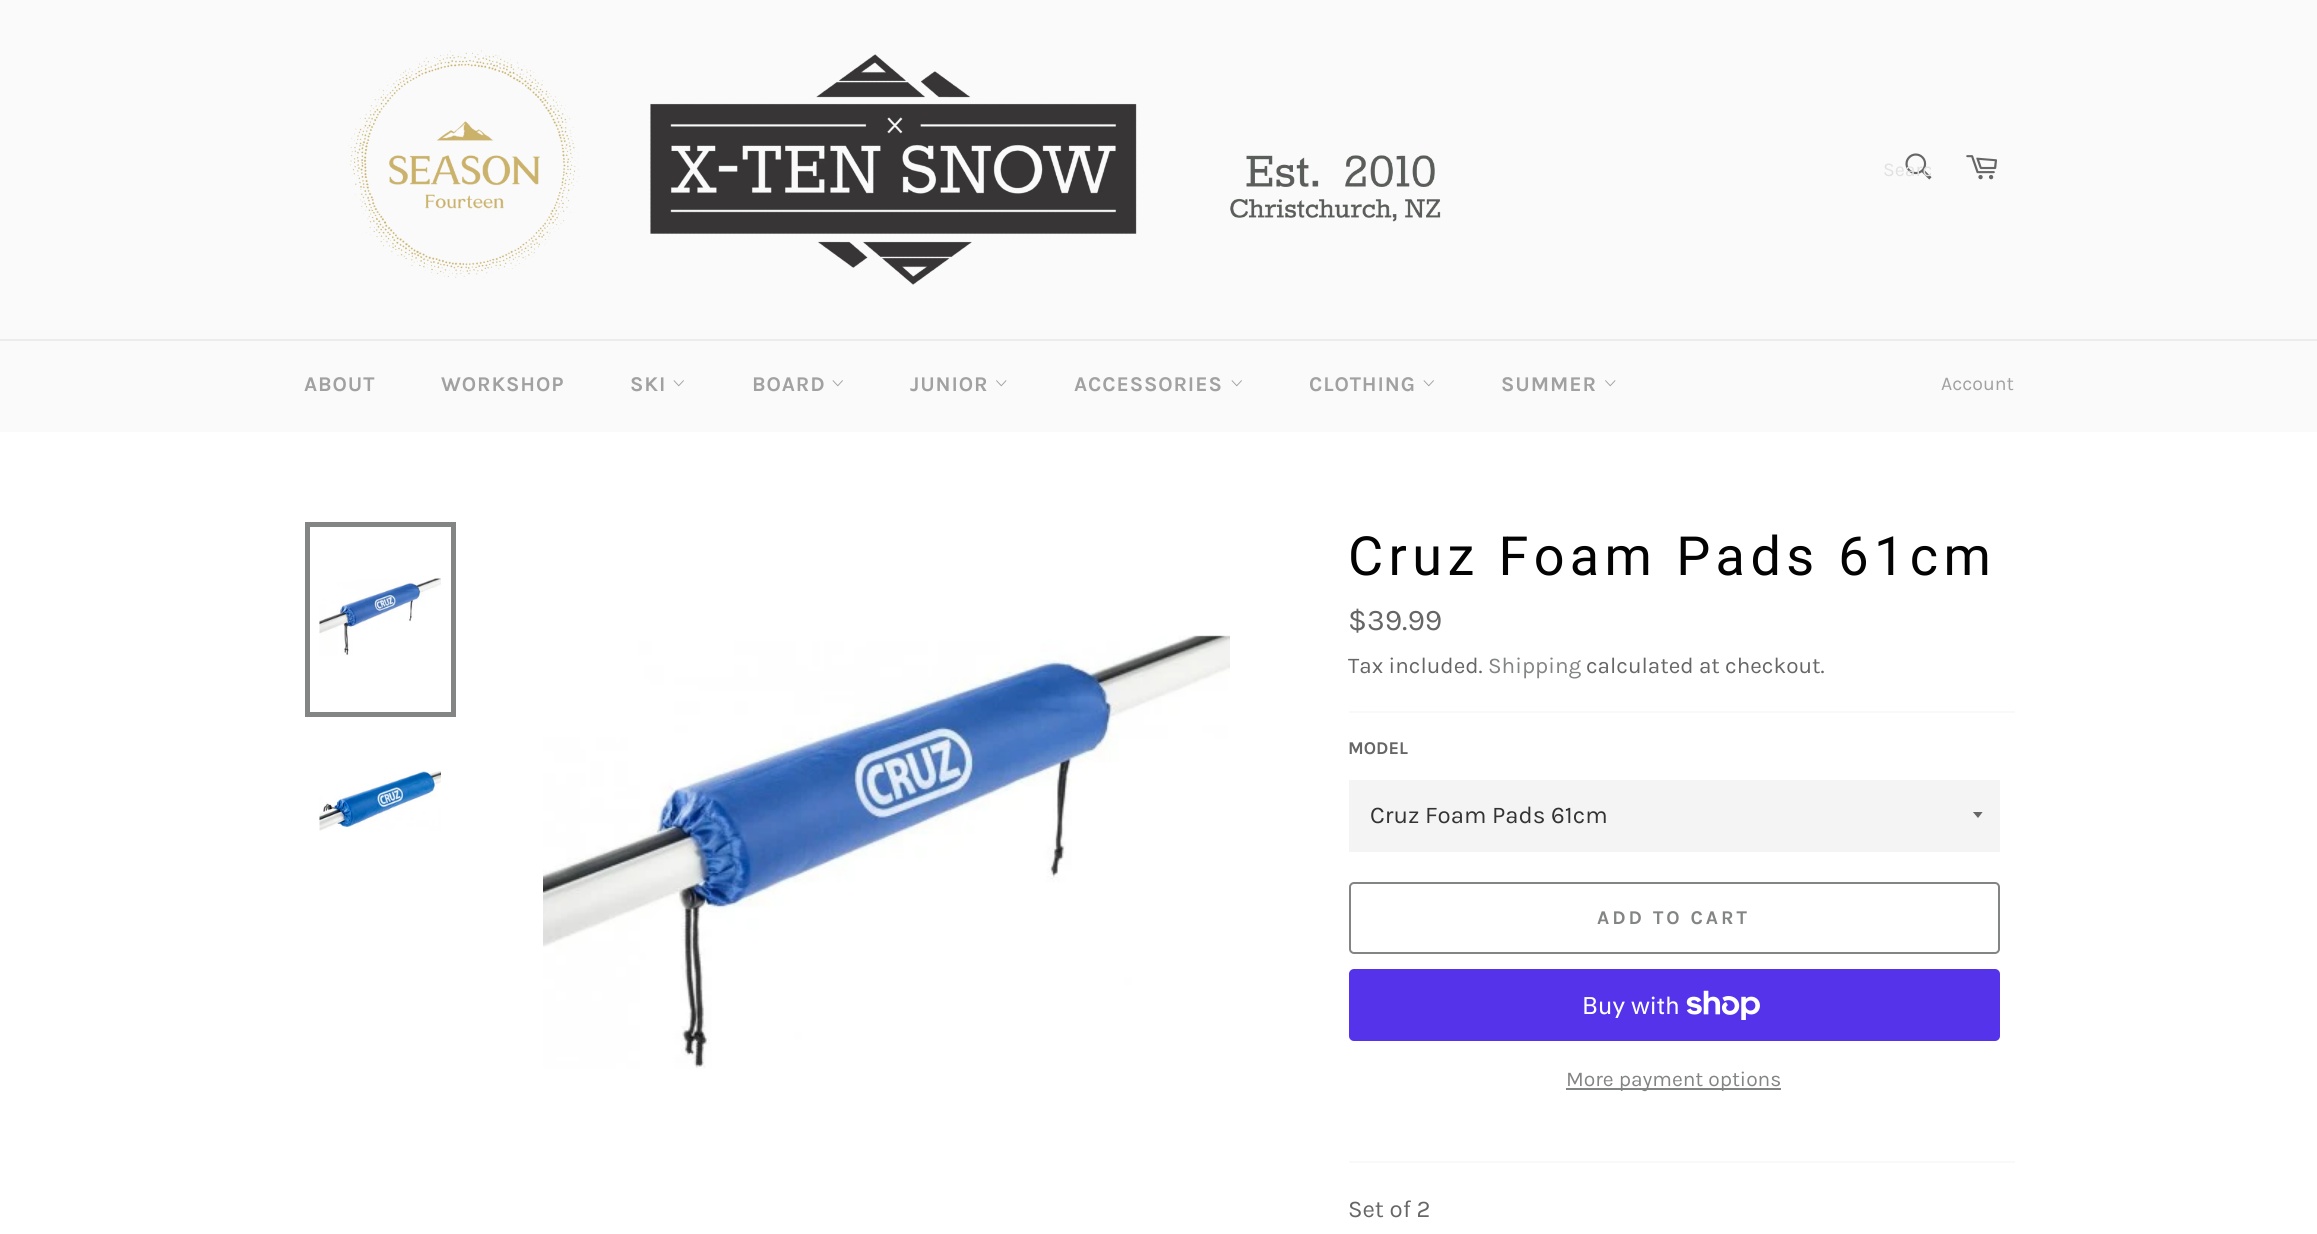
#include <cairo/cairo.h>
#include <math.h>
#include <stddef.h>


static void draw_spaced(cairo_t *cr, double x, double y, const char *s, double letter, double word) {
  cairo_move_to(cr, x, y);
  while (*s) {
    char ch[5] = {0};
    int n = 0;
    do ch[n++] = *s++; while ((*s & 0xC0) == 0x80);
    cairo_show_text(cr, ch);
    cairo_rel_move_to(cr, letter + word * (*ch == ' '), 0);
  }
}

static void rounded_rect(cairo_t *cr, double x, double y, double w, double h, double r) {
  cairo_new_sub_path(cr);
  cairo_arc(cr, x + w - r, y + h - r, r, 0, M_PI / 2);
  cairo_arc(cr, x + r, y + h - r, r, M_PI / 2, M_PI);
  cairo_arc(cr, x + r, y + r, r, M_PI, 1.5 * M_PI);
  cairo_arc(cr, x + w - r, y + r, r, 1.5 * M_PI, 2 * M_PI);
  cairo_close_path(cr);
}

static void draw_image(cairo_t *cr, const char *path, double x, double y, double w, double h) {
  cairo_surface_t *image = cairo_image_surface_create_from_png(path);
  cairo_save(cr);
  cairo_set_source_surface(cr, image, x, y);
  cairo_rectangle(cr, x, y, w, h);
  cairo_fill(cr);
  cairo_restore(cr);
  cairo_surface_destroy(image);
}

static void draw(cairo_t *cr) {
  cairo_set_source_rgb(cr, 250 / 255.0, 250 / 255.0, 250 / 255.0);
  cairo_paint(cr);
  draw_image(cr, "images/1.png", 348, 50, 1093, 235);
  draw_image(cr, "images/2.png", 1905, 153, 27, 27);
  draw_image(cr, "images/3.png", 1966, 155, 31, 25);
  cairo_set_source_rgb(cr, 236 / 255.0, 236 / 255.0, 236 / 255.0);
  cairo_rectangle(cr, 0, 339, 2317, 2);
  cairo_fill(cr);
  draw_image(cr, "images/4.png", 673, 380, 11, 7);
  draw_image(cr, "images/4.png", 832, 380, 11, 7);
  draw_image(cr, "images/5.png", 996, 380, 11, 7);
  draw_image(cr, "images/4.png", 1231, 380, 11, 7);
  draw_image(cr, "images/4.png", 1423, 380, 11, 7);
  draw_image(cr, "images/5.png", 1605, 380, 11, 7);
  cairo_set_source_rgb(cr, 1, 1, 1);
  cairo_rectangle(cr, 0, 432, 2317, 802);
  cairo_fill(cr);
  draw_image(cr, "images/6.png", 319, 577, 122, 79);
  cairo_rectangle(cr, 307.5, 524.5, 146, 190);
  cairo_set_source_rgb(cr, 131 / 255.0, 132 / 255.0, 132 / 255.0);
  cairo_set_line_width(cr, 5);
  cairo_stroke(cr);
  draw_image(cr, "images/7.png", 319, 771, 122, 60);
  draw_image(cr, "images/8.png", 543, 635, 687, 434);
  cairo_set_source_rgb(cr, 249 / 255.0, 249 / 255.0, 249 / 255.0);
  cairo_rectangle(cr, 1349, 711, 666, 2);
  cairo_fill(cr);
  cairo_set_source_rgb(cr, 244 / 255.0, 244 / 255.0, 244 / 255.0);
  cairo_rectangle(cr, 1349, 780, 651, 72);
  cairo_fill(cr);
  cairo_save(cr);
  cairo_rectangle(cr, 1973, 812, 12, 7);
  cairo_clip(cr);
  cairo_set_source_rgb(cr, 102 / 255.0, 102 / 255.0, 102 / 255.0);
  cairo_new_path(cr);
  cairo_move_to(cr, 1972.5, 811.5);
  cairo_line_to(cr, 1978, 818);
  cairo_line_to(cr, 1983, 811.5);
  cairo_close_path(cr);
  cairo_fill(cr);
  cairo_restore(cr);
  rounded_rect(cr, 1350, 883, 649, 70, 4);
  cairo_set_source_rgb(cr, 131 / 255.0, 132 / 255.0, 132 / 255.0);
  cairo_set_line_width(cr, 2);
  cairo_stroke(cr);
  cairo_set_source_rgb(cr, 84 / 255.0, 51 / 255.0, 235 / 255.0);
  rounded_rect(cr, 1349, 969, 651, 72, 5);
  cairo_fill(cr);
  draw_image(cr, "images/9.png", 1686, 990, 74, 30);
  cairo_set_source_rgb(cr, 131 / 255.0, 132 / 255.0, 132 / 255.0);
  cairo_rectangle(cr, 1566, 1088, 215, 2);
  cairo_fill(cr);
  cairo_set_source_rgb(cr, 249 / 255.0, 249 / 255.0, 249 / 255.0);
  cairo_rectangle(cr, 1349, 1161, 666, 2);
  cairo_fill(cr);
  cairo_save(cr);
  cairo_rectangle(cr, 1883, 158, 48, 22);
  cairo_clip(cr);
  cairo_select_font_face(cr, "Karla", CAIRO_FONT_SLANT_NORMAL, CAIRO_FONT_WEIGHT_NORMAL);
  cairo_set_font_size(cr, 19.5);
  cairo_set_source_rgb(cr, 225 / 255.0, 225 / 255.0, 225 / 255.0);
  cairo_move_to(cr, 1883, 176);
  cairo_show_text(cr, "Searc");
  cairo_restore(cr);
  cairo_select_font_face(cr, "Karla", CAIRO_FONT_SLANT_NORMAL, CAIRO_FONT_WEIGHT_BOLD);
  cairo_set_font_size(cr, 21);
  cairo_set_source_rgb(cr, 161 / 255.0, 161 / 255.0, 161 / 255.0);
  draw_spaced(cr, 304, 391, "ABOUT", 0.9, 0);
  draw_spaced(cr, 441, 391, "WORKSHOP", 0.9, 0);
  draw_spaced(cr, 630, 391, "SKI", 0.9, 0);
  draw_spaced(cr, 752, 391, "BOARD", 0.9, 0);
  draw_spaced(cr, 910, 391, "JUNIOR", 0.9, 0);
  draw_spaced(cr, 1074, 391, "ACCESSORIES", 0.9, 0);
  draw_spaced(cr, 1309, 391, "CLOTHING", 0.9, 0);
  draw_spaced(cr, 1501, 391, "SUMMER", 0.9, 0);
  cairo_select_font_face(cr, "Karla", CAIRO_FONT_SLANT_NORMAL, CAIRO_FONT_WEIGHT_NORMAL);
  cairo_set_font_size(cr, 19.5);
  cairo_move_to(cr, 1941, 390);
  cairo_show_text(cr, "Account");
  cairo_select_font_face(cr, "Roboto", CAIRO_FONT_SLANT_NORMAL, CAIRO_FONT_WEIGHT_NORMAL);
  cairo_set_font_size(cr, 54);
  cairo_set_source_rgb(cr, 3 / 255.0, 3 / 255.0, 3 / 255.0);
  draw_spaced(cr, 1348, 575, "Cruz Foam Pads 61cm", 5.4, 0);
  cairo_select_font_face(cr, "Karla", CAIRO_FONT_SLANT_NORMAL, CAIRO_FONT_WEIGHT_NORMAL);
  cairo_set_font_size(cr, 30);
  cairo_set_source_rgb(cr, 102 / 255.0, 102 / 255.0, 102 / 255.0);
  cairo_move_to(cr, 1348, 630);
  cairo_show_text(cr, "$39.99");
  cairo_set_font_size(cr, 22.5);
  cairo_move_to(cr, 1348, 673);
  cairo_show_text(cr, "Tax included.");
  cairo_set_source_rgb(cr, 131 / 255.0, 132 / 255.0, 132 / 255.0);
  cairo_move_to(cr, 1488, 673);
  cairo_show_text(cr, "Shipping");
  cairo_set_source_rgb(cr, 102 / 255.0, 102 / 255.0, 102 / 255.0);
  cairo_move_to(cr, 1586, 673);
  cairo_show_text(cr, "calculated at checkout.");
  cairo_select_font_face(cr, "Karla", CAIRO_FONT_SLANT_NORMAL, CAIRO_FONT_WEIGHT_BOLD);
  cairo_set_font_size(cr, 18);
  cairo_move_to(cr, 1348, 754);
  cairo_show_text(cr, "MODEL");
  cairo_select_font_face(cr, "Karla", CAIRO_FONT_SLANT_NORMAL, CAIRO_FONT_WEIGHT_NORMAL);
  cairo_set_font_size(cr, 24);
  cairo_set_source_rgb(cr, 51 / 255.0, 51 / 255.0, 51 / 255.0);
  cairo_move_to(cr, 1370, 823);
  cairo_show_text(cr, "Cruz Foam Pads 61cm");
  cairo_select_font_face(cr, "Karla", CAIRO_FONT_SLANT_NORMAL, CAIRO_FONT_WEIGHT_BOLD);
  cairo_set_font_size(cr, 19.5);
  cairo_set_source_rgb(cr, 131 / 255.0, 132 / 255.0, 132 / 255.0);
  draw_spaced(cr, 1597, 924, "ADD TO CART", 3, 0);
  cairo_select_font_face(cr, "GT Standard", CAIRO_FONT_SLANT_NORMAL, CAIRO_FONT_WEIGHT_NORMAL);
  cairo_set_font_size(cr, 24);
  cairo_set_source_rgb(cr, 1, 1, 1);
  cairo_move_to(cr, 1582, 1014);
  cairo_show_text(cr, "Buy with");
  cairo_select_font_face(cr, "Karla", CAIRO_FONT_SLANT_NORMAL, CAIRO_FONT_WEIGHT_NORMAL);
  cairo_set_font_size(cr, 21);
  cairo_set_source_rgb(cr, 131 / 255.0, 132 / 255.0, 132 / 255.0);
  cairo_move_to(cr, 1566, 1086);
  cairo_show_text(cr, "More payment options");
  cairo_set_font_size(cr, 24);
  cairo_set_source_rgb(cr, 102 / 255.0, 102 / 255.0, 102 / 255.0);
  cairo_move_to(cr, 1348, 1217);
  cairo_show_text(cr, "Set of 2");
}

int main(void) {
  cairo_surface_t *surface = cairo_image_surface_create(CAIRO_FORMAT_RGB24, 2317, 1234);
  cairo_t *cr = cairo_create(surface);
  cairo_font_options_t *options = cairo_font_options_create();
  cairo_font_options_set_hint_metrics(options, CAIRO_HINT_METRICS_OFF);
  cairo_font_options_set_hint_style(options, CAIRO_HINT_STYLE_NONE);
  cairo_set_font_options(cr, options);
  cairo_set_miter_limit(cr, 4);
  draw(cr);
  cairo_surface_write_to_png(surface, "out.png");
  cairo_font_options_destroy(options);
  cairo_destroy(cr);
  cairo_surface_destroy(surface);
  return 0;
}
